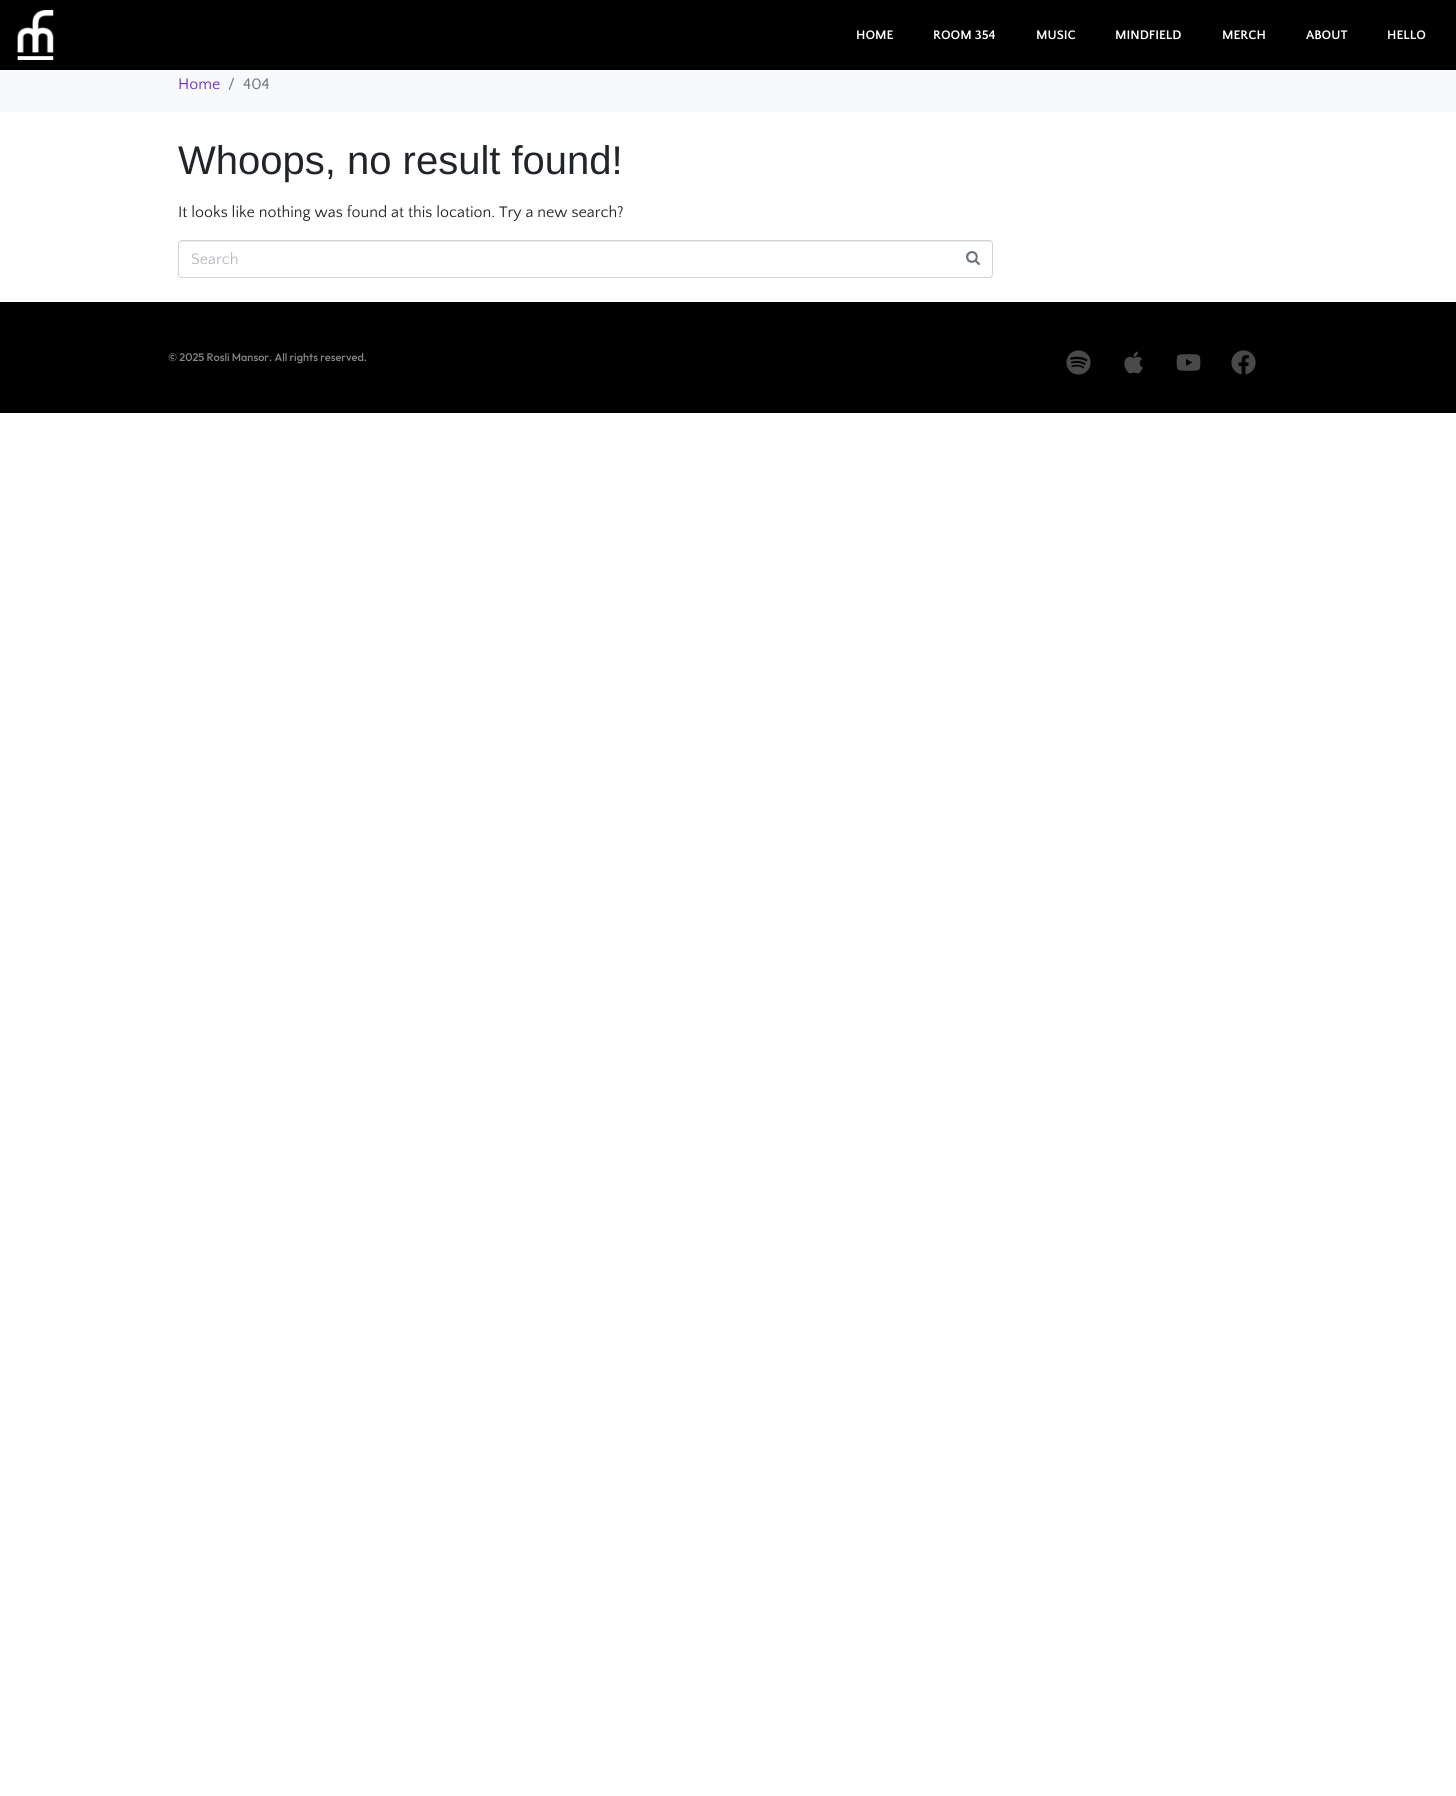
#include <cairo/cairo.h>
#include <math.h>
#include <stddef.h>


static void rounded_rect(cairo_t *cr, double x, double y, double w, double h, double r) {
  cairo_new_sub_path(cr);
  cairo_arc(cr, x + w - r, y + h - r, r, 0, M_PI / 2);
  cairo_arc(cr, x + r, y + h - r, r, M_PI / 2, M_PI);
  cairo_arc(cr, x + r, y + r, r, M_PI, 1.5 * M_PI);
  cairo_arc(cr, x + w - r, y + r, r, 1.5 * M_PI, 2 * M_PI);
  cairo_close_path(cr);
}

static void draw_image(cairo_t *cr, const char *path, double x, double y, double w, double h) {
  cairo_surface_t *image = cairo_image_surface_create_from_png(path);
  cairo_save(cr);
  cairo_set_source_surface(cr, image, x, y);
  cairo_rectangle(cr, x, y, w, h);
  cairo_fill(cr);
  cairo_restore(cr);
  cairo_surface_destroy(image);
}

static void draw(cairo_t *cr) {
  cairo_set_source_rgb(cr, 1, 1, 1);
  cairo_paint(cr);
  cairo_set_source_rgb(cr, 0, 0, 0);
  cairo_rectangle(cr, 0, 0, 1456, 70);
  cairo_fill(cr);
  draw_image(cr, "images/1.png", 17, 10, 37, 50);
  cairo_set_source_rgb(cr, 248 / 255.0, 249 / 255.0, 250 / 255.0);
  cairo_rectangle(cr, 0, 70, 1456, 42);
  cairo_fill(cr);
  cairo_set_source_rgb(cr, 236 / 255.0, 236 / 255.0, 236 / 255.0);
  cairo_new_path(cr);
  cairo_move_to(cr, 182, 242);
  cairo_line_to(cr, 989, 242);
  cairo_curve_to(cr, 991, 242, 992, 243, 992, 245);
  cairo_curve_to(cr, 992, 243, 991, 241, 989, 241);
  cairo_line_to(cr, 182, 241);
  cairo_curve_to(cr, 180, 241, 179, 243, 179, 245);
  cairo_curve_to(cr, 179, 243, 180, 242, 182, 242);
  cairo_close_path(cr);
  cairo_fill(cr);
  rounded_rect(cr, 178.5, 240.5, 814, 37, 3.5);
  cairo_set_source_rgb(cr, 206 / 255.0, 212 / 255.0, 218 / 255.0);
  cairo_set_line_width(cr, 1);
  cairo_stroke(cr);
  draw_image(cr, "images/2.png", 966, 251, 14, 15);
  cairo_set_source_rgb(cr, 0, 0, 0);
  cairo_rectangle(cr, 0, 302, 1456, 111);
  cairo_fill(cr);
  draw_image(cr, "images/3.png", 1066, 350, 25, 25);
  draw_image(cr, "images/4.png", 1124, 351, 19, 23);
  draw_image(cr, "images/5.png", 1176, 354, 25, 17);
  draw_image(cr, "images/6.png", 1231, 350, 25, 25);
  cairo_select_font_face(cr, "Quattrocento Sans", CAIRO_FONT_SLANT_NORMAL, CAIRO_FONT_WEIGHT_BOLD);
  cairo_set_font_size(cr, 13);
  cairo_set_source_rgb(cr, 1, 1, 1);
  cairo_move_to(cr, 856, 39);
  cairo_show_text(cr, "HOME");
  cairo_move_to(cr, 933, 39);
  cairo_show_text(cr, "ROOM 354");
  cairo_move_to(cr, 1036, 39);
  cairo_show_text(cr, "MUSIC");
  cairo_move_to(cr, 1115, 39);
  cairo_show_text(cr, "MINDFIELD");
  cairo_move_to(cr, 1222, 39);
  cairo_show_text(cr, "MERCH");
  cairo_move_to(cr, 1306, 39);
  cairo_show_text(cr, "ABOUT");
  cairo_move_to(cr, 1387, 39);
  cairo_show_text(cr, "HELLO");
  cairo_select_font_face(cr, "Quattrocento Sans", CAIRO_FONT_SLANT_NORMAL, CAIRO_FONT_WEIGHT_NORMAL);
  cairo_set_font_size(cr, 16);
  cairo_set_source_rgb(cr, 107 / 255.0, 43 / 255.0, 195 / 255.0);
  cairo_move_to(cr, 178, 89);
  cairo_show_text(cr, "Home");
  cairo_set_source_rgb(cr, 108 / 255.0, 117 / 255.0, 125 / 255.0);
  cairo_move_to(cr, 228, 89);
  cairo_show_text(cr, "/");
  cairo_move_to(cr, 243, 89);
  cairo_show_text(cr, "404");
  cairo_select_font_face(cr, "Liberation Sans", CAIRO_FONT_SLANT_NORMAL, CAIRO_FONT_WEIGHT_NORMAL);
  cairo_set_font_size(cr, 40);
  cairo_set_source_rgb(cr, 33 / 255.0, 37 / 255.0, 41 / 255.0);
  cairo_move_to(cr, 178, 174);
  cairo_show_text(cr, "Whoops, no result found!");
  cairo_select_font_face(cr, "Quattrocento Sans", CAIRO_FONT_SLANT_NORMAL, CAIRO_FONT_WEIGHT_NORMAL);
  cairo_set_font_size(cr, 16);
  cairo_move_to(cr, 178, 217);
  cairo_show_text(cr, "It looks like nothing was found at this location. Try a new search?");
  cairo_set_source_rgb(cr, 182 / 255.0, 186 / 255.0, 190 / 255.0);
  cairo_move_to(cr, 191, 264);
  cairo_show_text(cr, "Search");
  cairo_select_font_face(cr, "Outfit Medium", CAIRO_FONT_SLANT_NORMAL, CAIRO_FONT_WEIGHT_NORMAL);
  cairo_set_font_size(cr, 11);
  cairo_set_source_rgb(cr, 133 / 255.0, 133 / 255.0, 133 / 255.0);
  cairo_move_to(cr, 168, 361);
  cairo_show_text(cr, "© 2025 Rosli Mansor. All rights reserved.");
}

int main(void) {
  cairo_surface_t *surface = cairo_image_surface_create(CAIRO_FORMAT_RGB24, 1456, 1796);
  cairo_t *cr = cairo_create(surface);
  cairo_font_options_t *options = cairo_font_options_create();
  cairo_font_options_set_hint_metrics(options, CAIRO_HINT_METRICS_OFF);
  cairo_font_options_set_hint_style(options, CAIRO_HINT_STYLE_NONE);
  cairo_set_font_options(cr, options);
  cairo_set_miter_limit(cr, 4);
  draw(cr);
  cairo_surface_write_to_png(surface, "out.png");
  cairo_font_options_destroy(options);
  cairo_destroy(cr);
  cairo_surface_destroy(surface);
  return 0;
}
